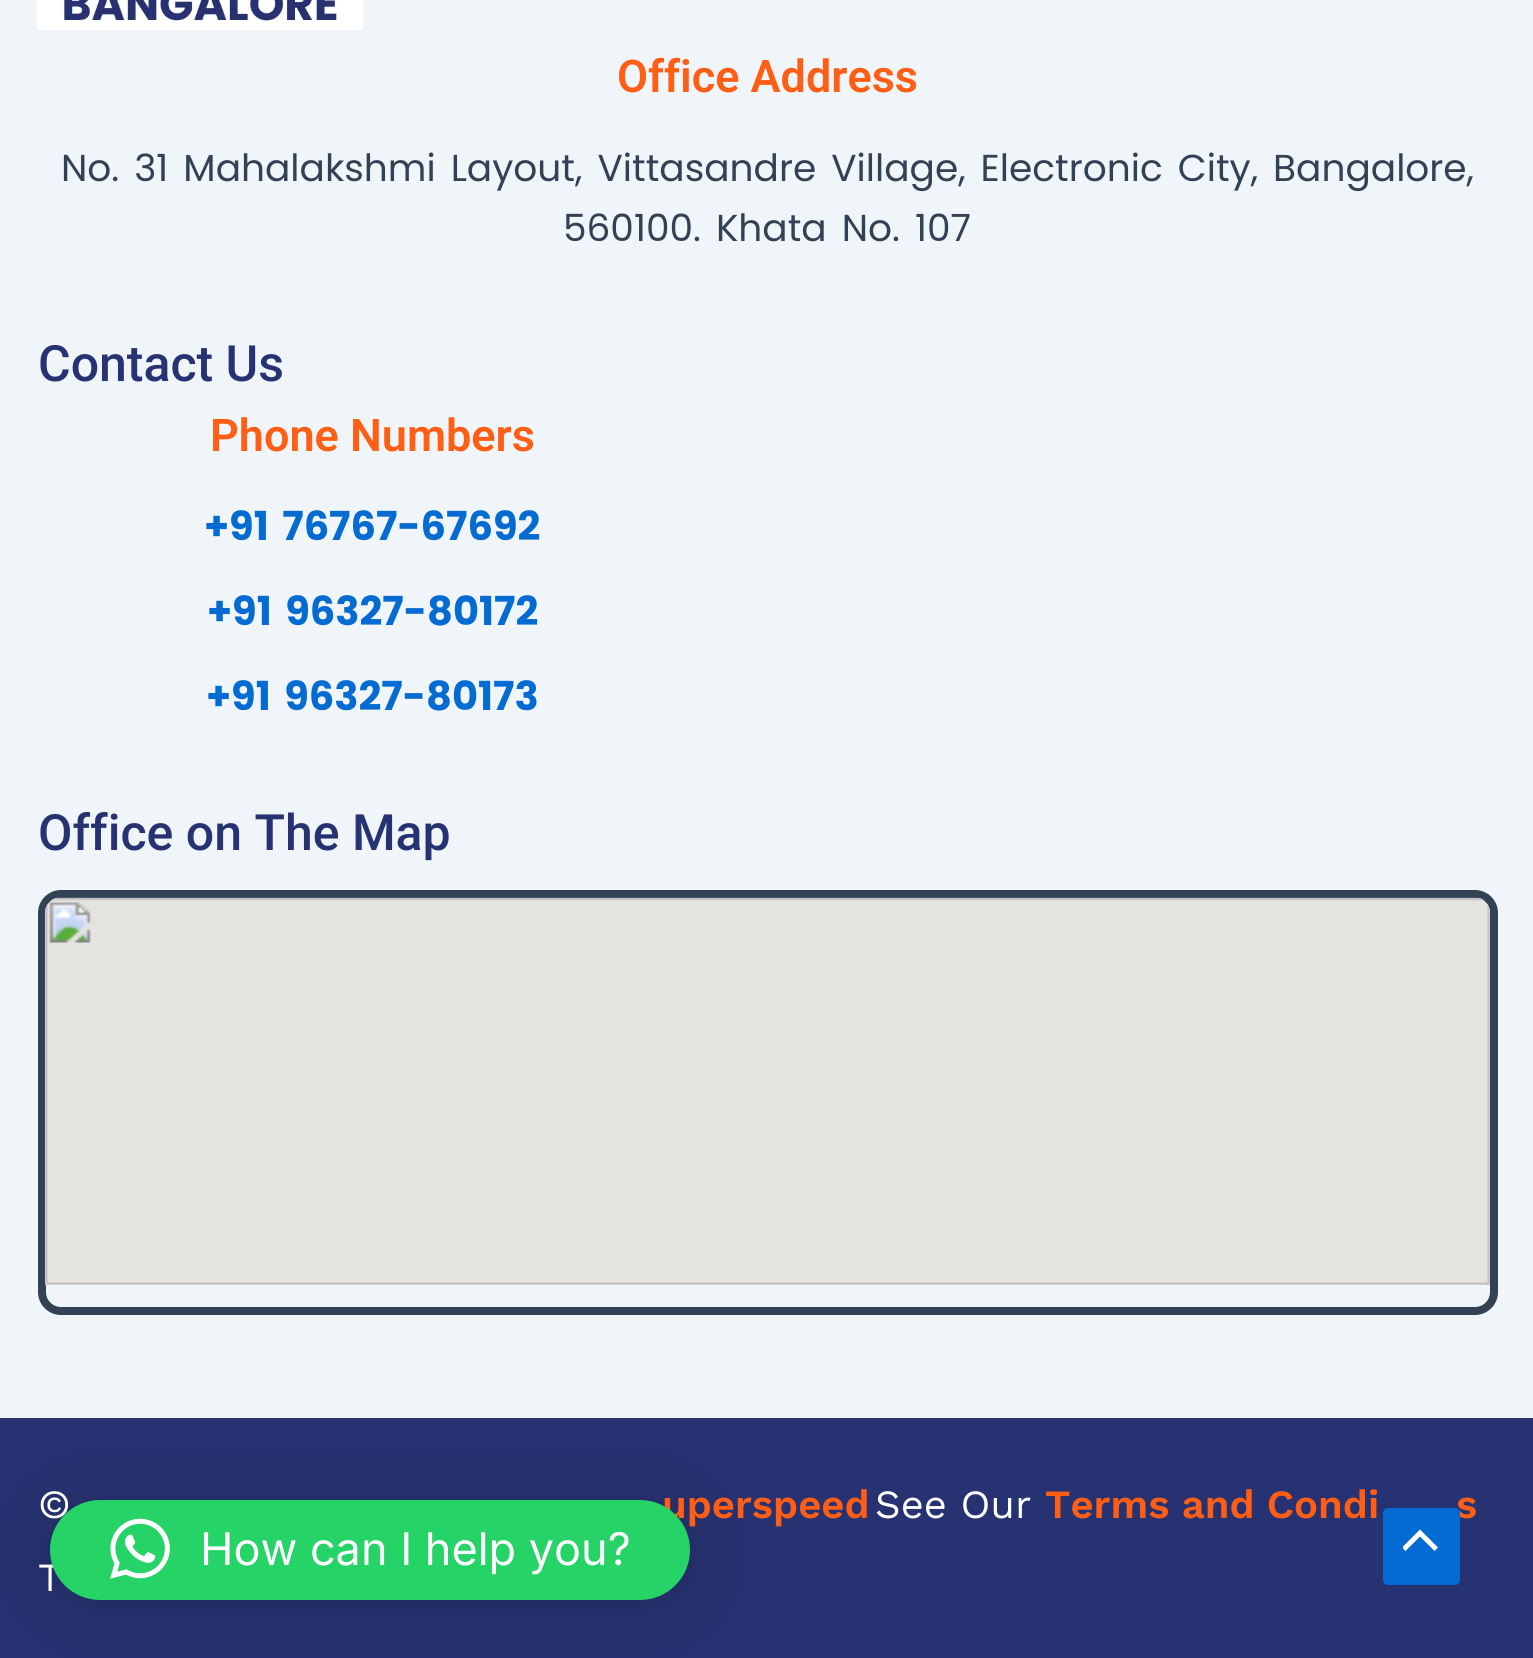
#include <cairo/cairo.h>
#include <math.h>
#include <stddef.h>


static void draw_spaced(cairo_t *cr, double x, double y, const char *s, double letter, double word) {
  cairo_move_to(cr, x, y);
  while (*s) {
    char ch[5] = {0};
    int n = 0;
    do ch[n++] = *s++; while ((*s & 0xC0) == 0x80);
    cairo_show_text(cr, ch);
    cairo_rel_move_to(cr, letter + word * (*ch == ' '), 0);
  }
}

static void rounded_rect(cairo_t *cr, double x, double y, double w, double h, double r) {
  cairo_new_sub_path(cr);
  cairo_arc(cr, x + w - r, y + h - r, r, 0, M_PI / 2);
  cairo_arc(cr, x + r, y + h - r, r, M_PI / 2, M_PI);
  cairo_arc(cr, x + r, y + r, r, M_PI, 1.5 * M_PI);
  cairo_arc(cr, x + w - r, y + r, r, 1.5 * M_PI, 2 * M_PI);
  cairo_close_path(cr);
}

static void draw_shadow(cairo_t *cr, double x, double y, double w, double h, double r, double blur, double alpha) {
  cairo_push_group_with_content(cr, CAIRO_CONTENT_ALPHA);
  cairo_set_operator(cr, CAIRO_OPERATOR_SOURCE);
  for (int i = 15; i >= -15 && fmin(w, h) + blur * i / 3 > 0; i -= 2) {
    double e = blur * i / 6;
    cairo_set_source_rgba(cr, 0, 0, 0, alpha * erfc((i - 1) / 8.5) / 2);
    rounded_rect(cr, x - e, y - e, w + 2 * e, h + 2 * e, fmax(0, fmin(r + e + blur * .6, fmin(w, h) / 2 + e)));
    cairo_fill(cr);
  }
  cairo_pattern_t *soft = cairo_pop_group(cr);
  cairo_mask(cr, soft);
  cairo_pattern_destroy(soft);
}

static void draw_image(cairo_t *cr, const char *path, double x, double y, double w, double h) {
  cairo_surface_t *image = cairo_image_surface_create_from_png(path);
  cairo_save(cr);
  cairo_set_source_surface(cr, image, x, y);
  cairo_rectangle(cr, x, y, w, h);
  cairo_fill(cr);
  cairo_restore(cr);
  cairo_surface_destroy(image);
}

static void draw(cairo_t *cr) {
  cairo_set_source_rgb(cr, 240 / 255.0, 245 / 255.0, 250 / 255.0);
  cairo_paint(cr);
  draw_image(cr, "images/1.png", 37, 0, 326, 30);
  rounded_rect(cr, 42, 894, 1452, 417, 19);
  cairo_set_source_rgb(cr, 51 / 255.0, 65 / 255.0, 85 / 255.0);
  cairo_set_line_width(cr, 8);
  cairo_stroke(cr);
  draw_image(cr, "images/2.png", 45, 897, 1445, 388);
  cairo_set_source_rgb(cr, 39 / 255.0, 50 / 255.0, 114 / 255.0);
  cairo_rectangle(cr, 0, 1421, 1533, 237);
  cairo_fill(cr);
  cairo_set_source_rgb(cr, 45 / 255.0, 53 / 255.0, 120 / 255.0);
  cairo_rectangle(cr, 0, 1418, 1533, 3);
  cairo_fill(cr);
  cairo_set_source_rgb(cr, 0, 0, 0);
  draw_shadow(cr, 50, 1505, 640, 100, 50, 40, 0.16);
  draw_shadow(cr, 50, 1503, 640, 100, 50, 7.5, 0.06);
  cairo_select_font_face(cr, "Roboto SemiBold", CAIRO_FONT_SLANT_NORMAL, CAIRO_FONT_WEIGHT_NORMAL);
  cairo_set_font_size(cr, 45);
  cairo_set_source_rgb(cr, 1, 94 / 255.0, 20 / 255.0);
  cairo_move_to(cr, 617, 92);
  cairo_show_text(cr, "Office Address");
  cairo_select_font_face(cr, "Poppins", CAIRO_FONT_SLANT_NORMAL, CAIRO_FONT_WEIGHT_NORMAL);
  cairo_set_font_size(cr, 37.5);
  cairo_set_source_rgb(cr, 51 / 255.0, 65 / 255.0, 85 / 255.0);
  draw_spaced(cr, 61, 181, "No. 31 Mahalakshmi Layout, Vittasandre Village, Electronic City, Bangalore,", 0, 5);
  draw_spaced(cr, 563, 241, "560100. Khata No. 107", 0, 5);
  cairo_select_font_face(cr, "Roboto Medium", CAIRO_FONT_SLANT_NORMAL, CAIRO_FONT_WEIGHT_NORMAL);
  cairo_set_font_size(cr, 50);
  cairo_set_source_rgb(cr, 39 / 255.0, 50 / 255.0, 114 / 255.0);
  cairo_move_to(cr, 38, 381);
  cairo_show_text(cr, "Contact Us");
  cairo_select_font_face(cr, "Roboto SemiBold", CAIRO_FONT_SLANT_NORMAL, CAIRO_FONT_WEIGHT_NORMAL);
  cairo_set_font_size(cr, 45);
  cairo_set_source_rgb(cr, 1, 94 / 255.0, 20 / 255.0);
  cairo_move_to(cr, 210, 451);
  cairo_show_text(cr, "Phone Numbers");
  cairo_select_font_face(cr, "Poppins", CAIRO_FONT_SLANT_NORMAL, CAIRO_FONT_WEIGHT_BOLD);
  cairo_set_font_size(cr, 40);
  cairo_set_source_rgb(cr, 4 / 255.0, 107 / 255.0, 210 / 255.0);
  draw_spaced(cr, 204, 540, "+91 76767-67692", 0, 5);
  draw_spaced(cr, 207, 625, "+91 96327-80172", 0, 5);
  draw_spaced(cr, 206, 710, "+91 96327-80173", 0, 5);
  cairo_select_font_face(cr, "Roboto Medium", CAIRO_FONT_SLANT_NORMAL, CAIRO_FONT_WEIGHT_NORMAL);
  cairo_set_font_size(cr, 50);
  cairo_set_source_rgb(cr, 39 / 255.0, 50 / 255.0, 114 / 255.0);
  cairo_move_to(cr, 38, 850);
  cairo_show_text(cr, "Office on The Map");
  cairo_select_font_face(cr, "Work Sans", CAIRO_FONT_SLANT_NORMAL, CAIRO_FONT_WEIGHT_NORMAL);
  cairo_set_font_size(cr, 40);
  cairo_set_source_rgb(cr, 1, 1, 1);
  cairo_move_to(cr, 38, 1518);
  cairo_show_text(cr, "©");
  cairo_select_font_face(cr, "Work Sans SemiBold", CAIRO_FONT_SLANT_NORMAL, CAIRO_FONT_WEIGHT_NORMAL);
  cairo_set_source_rgb(cr, 1, 94 / 255.0, 20 / 255.0);
  cairo_move_to(cr, 662, 1518);
  cairo_show_text(cr, "uperspeed");
  cairo_select_font_face(cr, "Work Sans", CAIRO_FONT_SLANT_NORMAL, CAIRO_FONT_WEIGHT_NORMAL);
  cairo_set_source_rgb(cr, 1, 1, 1);
  cairo_move_to(cr, 875, 1518);
  cairo_show_text(cr, "See Our");
  cairo_select_font_face(cr, "Work Sans SemiBold", CAIRO_FONT_SLANT_NORMAL, CAIRO_FONT_WEIGHT_NORMAL);
  cairo_set_source_rgb(cr, 1, 94 / 255.0, 20 / 255.0);
  cairo_move_to(cr, 1045, 1518);
  cairo_show_text(cr, "Terms and Condi");
  cairo_move_to(cr, 1456, 1518);
  cairo_show_text(cr, "s");
  cairo_select_font_face(cr, "Work Sans", CAIRO_FONT_SLANT_NORMAL, CAIRO_FONT_WEIGHT_NORMAL);
  cairo_set_source_rgb(cr, 1, 1, 1);
  cairo_move_to(cr, 38, 1591);
  cairo_show_text(cr, "T");
  cairo_set_source_rgb(cr, 37 / 255.0, 211 / 255.0, 102 / 255.0);
  rounded_rect(cr, 50, 1500, 640, 100, 50);
  cairo_fill(cr);
  draw_image(cr, "images/3.png", 110, 1518, 60, 61);
  cairo_select_font_face(cr, "Inter", CAIRO_FONT_SLANT_NORMAL, CAIRO_FONT_WEIGHT_NORMAL);
  cairo_set_font_size(cr, 45);
  cairo_set_source_rgb(cr, 1, 1, 1);
  cairo_move_to(cr, 200, 1565);
  cairo_show_text(cr, "How can I help you?");
  cairo_set_source_rgb(cr, 4 / 255.0, 107 / 255.0, 210 / 255.0);
  rounded_rect(cr, 1383, 1508, 77, 77, 5);
  cairo_fill(cr);
  cairo_save(cr);
  cairo_rectangle(cr, 1403, 1525, 37, 30);
  cairo_clip(cr);
  cairo_set_source_rgb(cr, 1, 1, 1);
  cairo_new_path(cr);
  cairo_move_to(cr, 1438, 1547.5);
  cairo_line_to(cr, 1420, 1529.5);
  cairo_line_to(cr, 1402, 1547.5);
  cairo_line_to(cr, 1405.5, 1551);
  cairo_line_to(cr, 1420, 1536.5);
  cairo_line_to(cr, 1434.5, 1551);
  cairo_close_path(cr);
  cairo_fill(cr);
  cairo_restore(cr);
}

int main(void) {
  cairo_surface_t *surface = cairo_image_surface_create(CAIRO_FORMAT_RGB24, 1533, 1658);
  cairo_t *cr = cairo_create(surface);
  cairo_font_options_t *options = cairo_font_options_create();
  cairo_font_options_set_hint_metrics(options, CAIRO_HINT_METRICS_OFF);
  cairo_font_options_set_hint_style(options, CAIRO_HINT_STYLE_NONE);
  cairo_set_font_options(cr, options);
  cairo_set_miter_limit(cr, 4);
  draw(cr);
  cairo_surface_write_to_png(surface, "out.png");
  cairo_font_options_destroy(options);
  cairo_destroy(cr);
  cairo_surface_destroy(surface);
  return 0;
}
